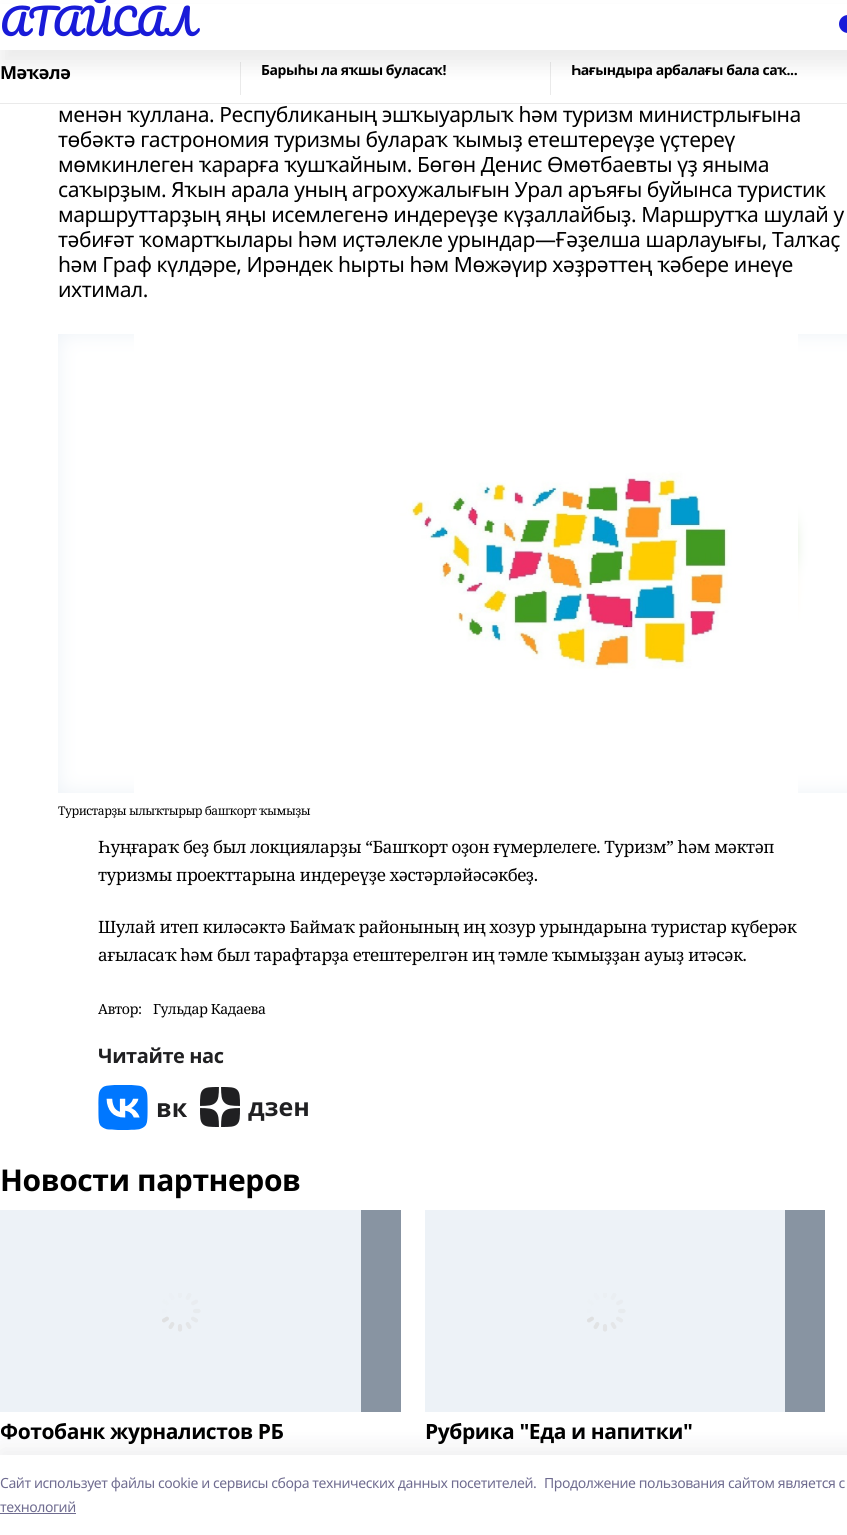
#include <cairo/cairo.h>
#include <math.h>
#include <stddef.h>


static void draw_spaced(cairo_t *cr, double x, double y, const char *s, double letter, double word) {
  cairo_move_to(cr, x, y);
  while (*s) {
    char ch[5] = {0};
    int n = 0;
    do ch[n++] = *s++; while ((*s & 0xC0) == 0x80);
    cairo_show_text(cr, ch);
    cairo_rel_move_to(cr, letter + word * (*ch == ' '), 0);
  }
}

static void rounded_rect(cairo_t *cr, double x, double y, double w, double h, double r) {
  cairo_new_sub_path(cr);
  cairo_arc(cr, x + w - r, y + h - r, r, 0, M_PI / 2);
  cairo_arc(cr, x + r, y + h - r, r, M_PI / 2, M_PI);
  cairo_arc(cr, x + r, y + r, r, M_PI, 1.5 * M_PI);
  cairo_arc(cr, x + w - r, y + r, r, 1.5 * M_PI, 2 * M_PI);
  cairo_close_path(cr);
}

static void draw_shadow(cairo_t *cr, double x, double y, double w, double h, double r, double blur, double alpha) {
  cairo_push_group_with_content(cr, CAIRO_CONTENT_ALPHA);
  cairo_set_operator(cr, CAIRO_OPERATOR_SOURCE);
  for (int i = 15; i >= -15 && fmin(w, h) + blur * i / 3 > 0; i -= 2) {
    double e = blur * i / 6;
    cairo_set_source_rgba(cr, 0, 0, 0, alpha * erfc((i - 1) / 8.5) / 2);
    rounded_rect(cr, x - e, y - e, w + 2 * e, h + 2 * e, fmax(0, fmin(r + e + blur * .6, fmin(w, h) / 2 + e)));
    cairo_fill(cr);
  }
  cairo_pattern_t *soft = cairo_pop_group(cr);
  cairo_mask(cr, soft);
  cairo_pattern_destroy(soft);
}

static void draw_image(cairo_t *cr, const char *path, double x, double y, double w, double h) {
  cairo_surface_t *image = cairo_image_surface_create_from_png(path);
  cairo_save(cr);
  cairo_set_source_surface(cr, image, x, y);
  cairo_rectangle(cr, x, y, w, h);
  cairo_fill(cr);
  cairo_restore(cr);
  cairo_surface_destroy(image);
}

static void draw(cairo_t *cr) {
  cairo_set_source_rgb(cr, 1, 1, 1);
  cairo_paint(cr);
  cairo_set_source_rgb(cr, 234 / 255.0, 234 / 255.0, 234 / 255.0);
  cairo_rectangle(cr, 240, 62, 1, 33);
  cairo_fill(cr);
  cairo_rectangle(cr, 550, 62, 1, 33);
  cairo_fill(cr);
  cairo_set_source_rgb(cr, 0, 0, 0);
  draw_shadow(cr, 0, 15, 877, 50, 0, 10, 0.08);
  cairo_set_source_rgb(cr, 1, 1, 1);
  cairo_rectangle(cr, 0, 4, 847, 46);
  cairo_fill(cr);
  cairo_set_source_rgb(cr, 25 / 255.0, 27 / 255.0, 216 / 255.0);
  rounded_rect(cr, 839, 15, 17, 18, 9);
  cairo_fill(cr);
  cairo_set_source_rgb(cr, 234 / 255.0, 234 / 255.0, 234 / 255.0);
  cairo_rectangle(cr, 0, 103, 847, 1);
  cairo_fill(cr);
  cairo_set_source_rgb(cr, 237 / 255.0, 242 / 255.0, 247 / 255.0);
  cairo_rectangle(cr, 58, 334, 789, 459);
  cairo_fill(cr);
  draw_image(cr, "images/1.png", 58, 334, 789, 459);
  draw_image(cr, "images/2.png", 134, 334, 664, 459);
  draw_image(cr, "images/3.png", 98, 1085, 89, 45);
  draw_image(cr, "images/4.png", 200, 1087, 108, 40);
  cairo_set_source_rgb(cr, 136 / 255.0, 148 / 255.0, 162 / 255.0);
  cairo_rectangle(cr, 361, 1210, 40, 202);
  cairo_fill(cr);
  cairo_set_source_rgb(cr, 237 / 255.0, 242 / 255.0, 247 / 255.0);
  cairo_rectangle(cr, 0, 1210, 361, 202);
  cairo_fill(cr);
  draw_image(cr, "images/5.png", 162, 1293, 39, 39);
  cairo_set_source_rgb(cr, 136 / 255.0, 148 / 255.0, 162 / 255.0);
  cairo_rectangle(cr, 785, 1210, 40, 202);
  cairo_fill(cr);
  cairo_set_source_rgb(cr, 237 / 255.0, 242 / 255.0, 247 / 255.0);
  cairo_rectangle(cr, 425, 1210, 360, 202);
  cairo_fill(cr);
  draw_image(cr, "images/5.png", 587, 1293, 39, 39);
  cairo_set_source_rgb(cr, 20 / 255.0, 20 / 255.0, 43 / 255.0);
  draw_shadow(cr, 0, 1449, 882, 80, 0, 11.5, 0.08);
  cairo_set_source_rgb(cr, 1, 1, 1);
  cairo_rectangle(cr, 0, 1455, 847, 80);
  cairo_fill(cr);
  cairo_set_source_rgb(cr, 111 / 255.0, 108 / 255.0, 144 / 255.0);
  cairo_rectangle(cr, 0, 1513, 76, 1);
  cairo_fill(cr);
  cairo_select_font_face(cr, "Pacifico", CAIRO_FONT_SLANT_NORMAL, CAIRO_FONT_WEIGHT_NORMAL);
  cairo_set_font_size(cr, 36);
  cairo_set_source_rgb(cr, 25 / 255.0, 27 / 255.0, 216 / 255.0);
  draw_spaced(cr, 0, 36, "АТАЙСАЛ", -0.42, 0);
  cairo_select_font_face(cr, "Noto Sans", CAIRO_FONT_SLANT_NORMAL, CAIRO_FONT_WEIGHT_BOLD);
  cairo_set_font_size(cr, 18);
  cairo_set_source_rgb(cr, 0, 0, 0);
  draw_spaced(cr, 0, 79, "Мәҡәлә", -0.42, 0);
  cairo_set_font_size(cr, 14);
  draw_spaced(cr, 261, 75, "Барыһы ла яҡшы буласаҡ!", -0.42, 0);
  draw_spaced(cr, 571, 75, "Һағындыра арбалағы бала саҡ...", -0.42, 0);
  cairo_select_font_face(cr, "Noto Sans", CAIRO_FONT_SLANT_NORMAL, CAIRO_FONT_WEIGHT_NORMAL);
  cairo_set_font_size(cr, 21);
  draw_spaced(cr, 58, 122, "менән ҡуллана. Республиканың эшҡыуарлыҡ һәм туризм министрлығына", -0.42, 0);
  draw_spaced(cr, 58, 147, "төбәктә гастрономия туризмы булараҡ ҡымыҙ етештереүҙе үҫтереү", -0.42, 0);
  draw_spaced(cr, 58, 172, "мөмкинлеген ҡарарға ҡушҡайным. Бөгөн Денис Өмөтбаевты үҙ яныма", -0.42, 0);
  draw_spaced(cr, 58, 197, "саҡырҙым. Яҡын арала уның агрохужалығын Урал аръяғы буйынса туристик", -0.42, 0);
  draw_spaced(cr, 58, 222, "маршруттарҙың яңы исемлегенә индереүҙе күҙаллайбыҙ. Маршрутҡа шулай у", -0.42, 0);
  draw_spaced(cr, 58, 247, "тәбиғәт ҡомартҡылары һәм иҫтәлекле урындар—Ғәҙелша шарлауығы, Талҡаҫ", -0.42, 0);
  draw_spaced(cr, 58, 272, "һәм Граф күлдәре, Ирәндек һырты һәм Мөжәүир хәҙрәттең ҡәбере инеүе", -0.42, 0);
  draw_spaced(cr, 58, 297, "ихтимал.", -0.42, 0);
  cairo_select_font_face(cr, "Noto Serif", CAIRO_FONT_SLANT_NORMAL, CAIRO_FONT_WEIGHT_NORMAL);
  cairo_set_font_size(cr, 12);
  draw_spaced(cr, 58, 815, "Туристарҙы ылыҡтырыр башҡорт ҡымыҙы", -0.42, 0);
  cairo_set_font_size(cr, 17);
  draw_spaced(cr, 98, 853, "Һуңғараҡ беҙ был локцияларҙы “Башҡорт оҙон ғүмерлелеге. Туризм” һәм мәктәп", -0.42, 0);
  draw_spaced(cr, 98, 881, "туризмы проекттарына индереүҙе хәстәрләйәсәкбеҙ.", -0.42, 0);
  draw_spaced(cr, 98, 933, "Шулай итеп киләсәктә Баймаҡ районының иң хозур урындарына туристар күберәк", -0.42, 0);
  draw_spaced(cr, 98, 961, "ағыласаҡ һәм был тарафтарҙа етештерелгән иң тәмле ҡымыҙҙан ауыҙ итәсәк.", -0.42, 0);
  cairo_set_font_size(cr, 14);
  draw_spaced(cr, 98, 1014, "Автор:", -0.42, 0);
  draw_spaced(cr, 153, 1014, "Гульдар Кадаева", -0.42, 0);
  cairo_select_font_face(cr, "Noto Sans", CAIRO_FONT_SLANT_NORMAL, CAIRO_FONT_WEIGHT_BOLD);
  cairo_set_font_size(cr, 20);
  cairo_set_source_rgb(cr, 32 / 255.0, 32 / 255.0, 34 / 255.0);
  draw_spaced(cr, 98, 1063, "Читайте нас", -0.42, 0);
  cairo_set_font_size(cr, 30);
  cairo_set_source_rgb(cr, 0, 0, 0);
  draw_spaced(cr, 0, 1191, "Новости партнеров", -0.42, 0);
  cairo_set_font_size(cr, 21);
  draw_spaced(cr, 0, 1439, "Фотобанк журналистов РБ", -0.42, 0);
  draw_spaced(cr, 425, 1439, "Рубрика \"Еда и напитки\"", -0.42, 0);
  cairo_select_font_face(cr, "Noto Sans", CAIRO_FONT_SLANT_NORMAL, CAIRO_FONT_WEIGHT_NORMAL);
  cairo_set_font_size(cr, 14);
  cairo_set_source_rgb(cr, 111 / 255.0, 108 / 255.0, 144 / 255.0);
  draw_spaced(cr, 0, 1488, "Cайт использует файлы cookie и сервисы сбора технических данных посетителей.", -0.42, 0);
  draw_spaced(cr, 544, 1488, "Продолжение пользования сайтом является с", -0.42, 0);
  draw_spaced(cr, 0, 1512, "технологий", -0.42, 0);
}

int main(void) {
  cairo_surface_t *surface = cairo_image_surface_create(CAIRO_FORMAT_RGB24, 847, 1535);
  cairo_t *cr = cairo_create(surface);
  cairo_font_options_t *options = cairo_font_options_create();
  cairo_font_options_set_hint_metrics(options, CAIRO_HINT_METRICS_OFF);
  cairo_font_options_set_hint_style(options, CAIRO_HINT_STYLE_NONE);
  cairo_set_font_options(cr, options);
  cairo_set_miter_limit(cr, 4);
  draw(cr);
  cairo_surface_write_to_png(surface, "out.png");
  cairo_font_options_destroy(options);
  cairo_destroy(cr);
  cairo_surface_destroy(surface);
  return 0;
}
